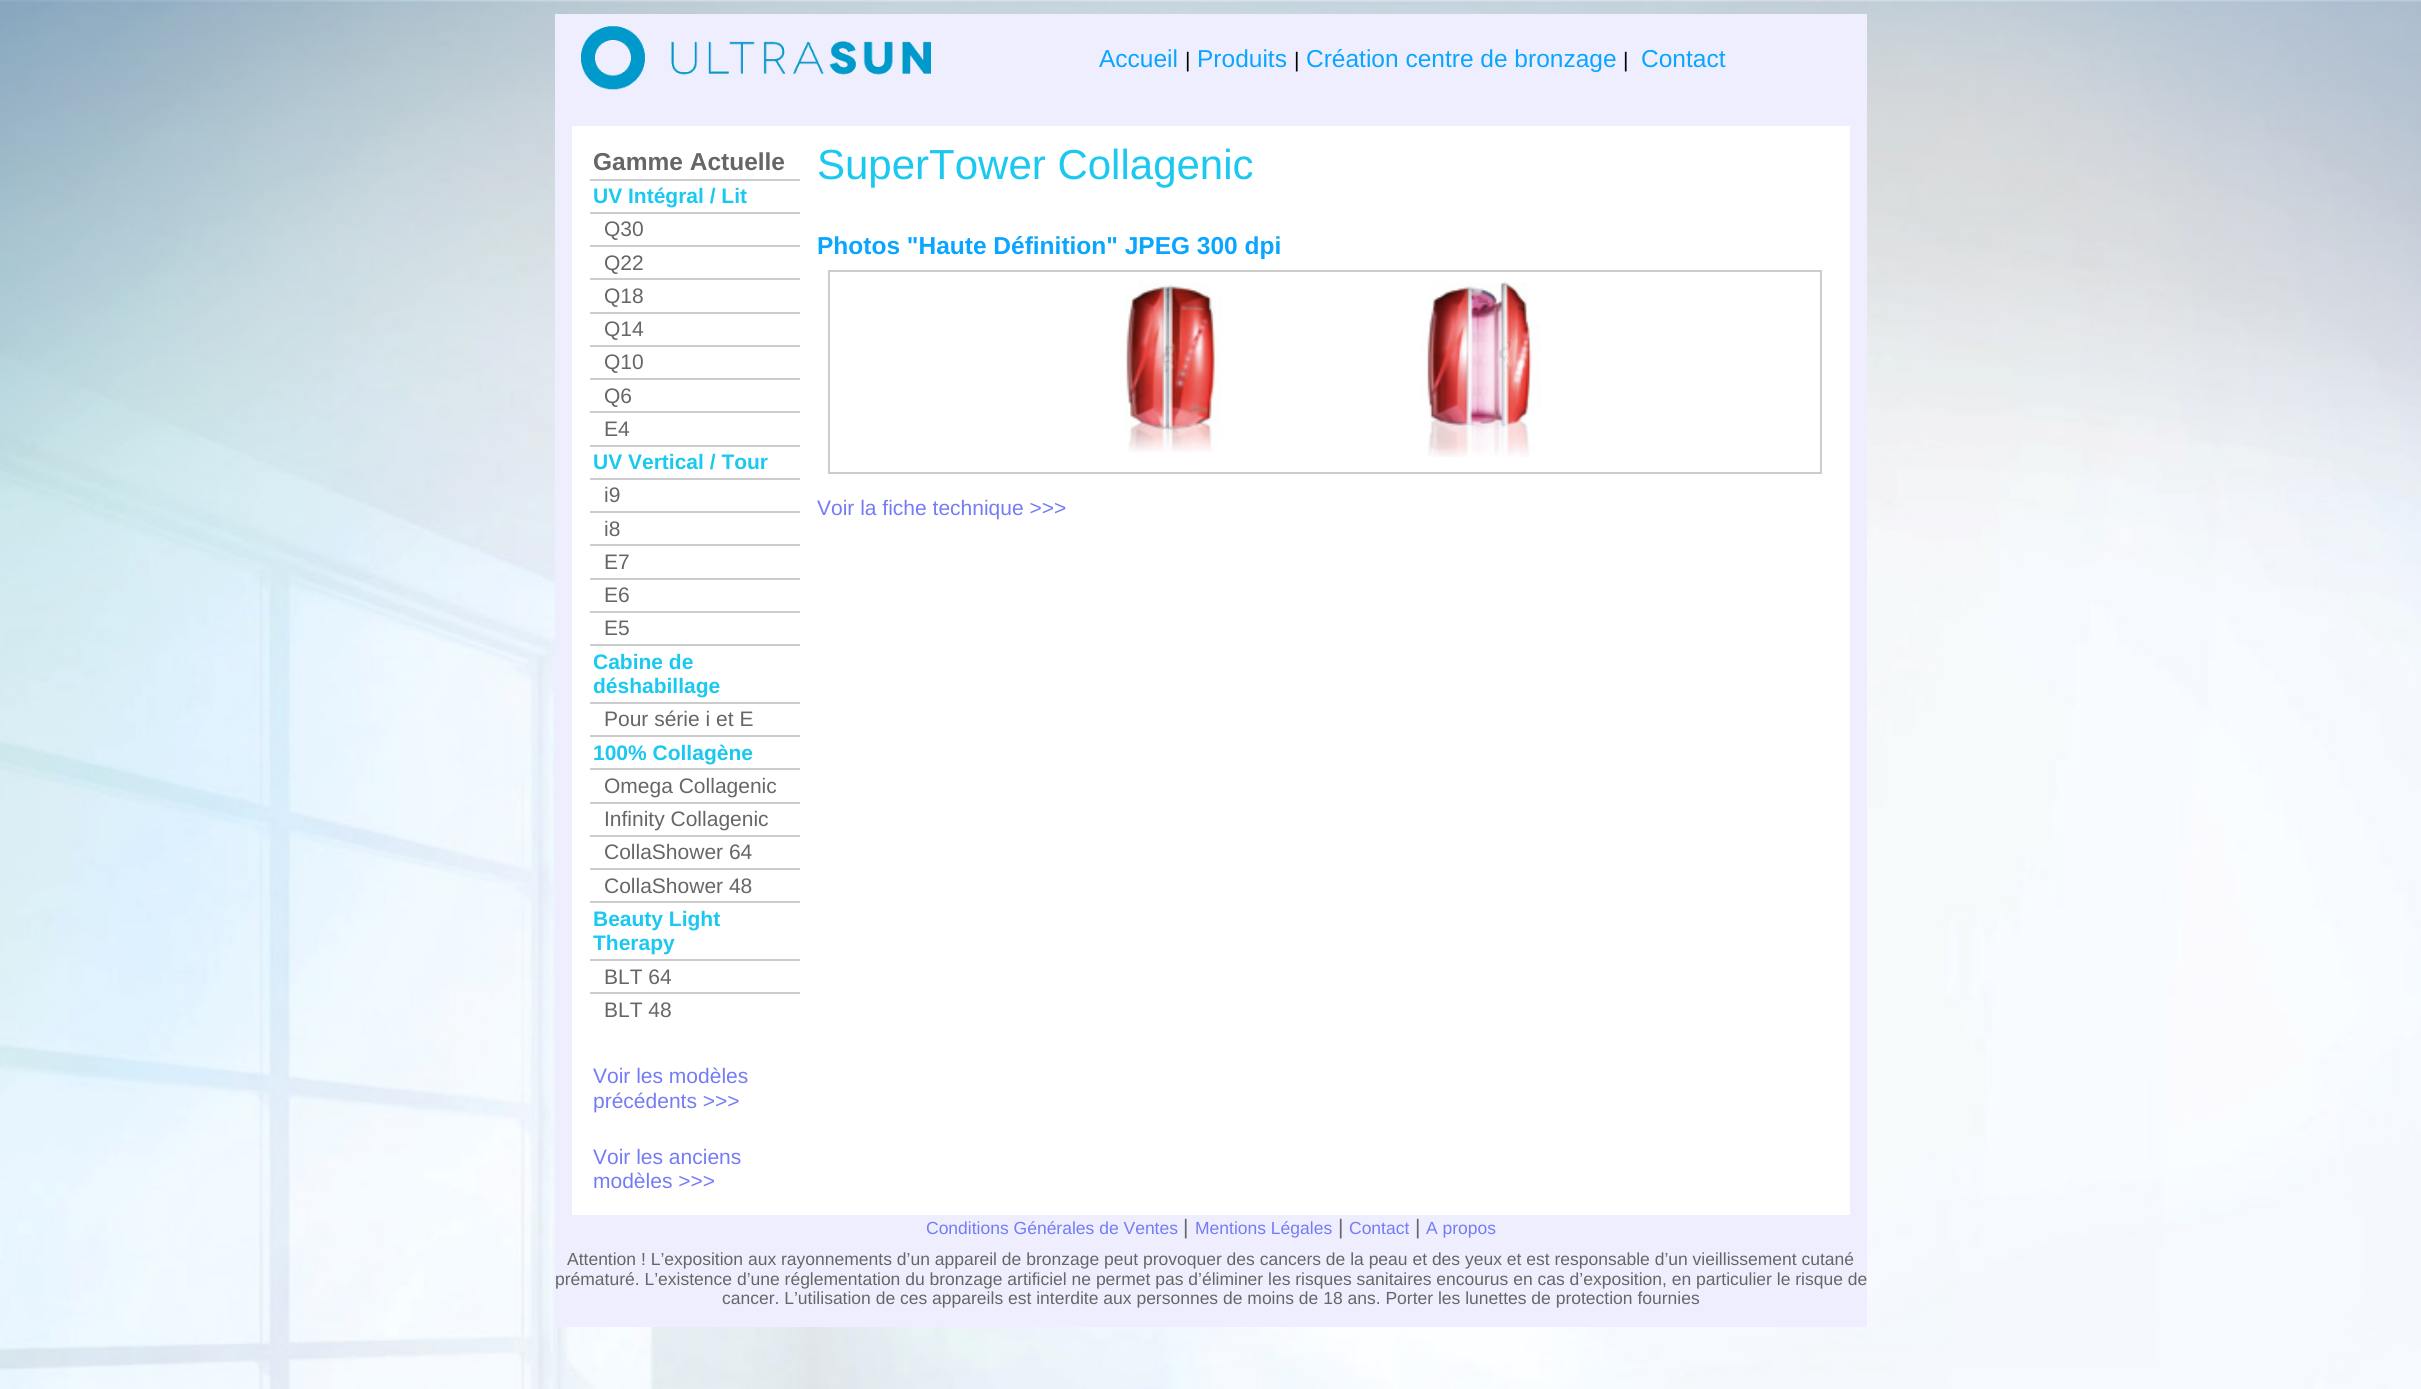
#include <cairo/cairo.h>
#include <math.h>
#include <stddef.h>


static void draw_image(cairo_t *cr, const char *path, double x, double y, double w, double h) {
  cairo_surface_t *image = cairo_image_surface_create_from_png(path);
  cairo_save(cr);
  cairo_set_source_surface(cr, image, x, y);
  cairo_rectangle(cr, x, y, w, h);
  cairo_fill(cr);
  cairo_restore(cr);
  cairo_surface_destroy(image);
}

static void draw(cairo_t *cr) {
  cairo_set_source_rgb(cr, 1, 1, 1);
  cairo_paint(cr);
  draw_image(cr, "images/1.png", 0, 0, 2421, 1389);
  cairo_set_source_rgb(cr, 238 / 255.0, 238 / 255.0, 1);
  cairo_rectangle(cr, 555, 14, 1312, 1313);
  cairo_fill(cr);
  draw_image(cr, "images/2.png", 581, 26, 350, 64);
  cairo_set_source_rgb(cr, 1, 1, 1);
  cairo_rectangle(cr, 572, 126, 1278, 1089);
  cairo_fill(cr);
  cairo_set_source_rgb(cr, 204 / 255.0, 204 / 255.0, 204 / 255.0);
  cairo_rectangle(cr, 590, 179, 210, 2);
  cairo_fill(cr);
  cairo_rectangle(cr, 590, 212, 210, 2);
  cairo_fill(cr);
  cairo_rectangle(cr, 590, 245, 210, 2);
  cairo_fill(cr);
  cairo_rectangle(cr, 590, 278, 210, 2);
  cairo_fill(cr);
  cairo_rectangle(cr, 590, 312, 210, 2);
  cairo_fill(cr);
  cairo_rectangle(cr, 590, 345, 210, 2);
  cairo_fill(cr);
  cairo_rectangle(cr, 590, 378, 210, 2);
  cairo_fill(cr);
  cairo_rectangle(cr, 590, 411, 210, 2);
  cairo_fill(cr);
  cairo_rectangle(cr, 590, 445, 210, 2);
  cairo_fill(cr);
  cairo_rectangle(cr, 590, 478, 210, 2);
  cairo_fill(cr);
  cairo_rectangle(cr, 590, 511, 210, 2);
  cairo_fill(cr);
  cairo_rectangle(cr, 590, 544, 210, 2);
  cairo_fill(cr);
  cairo_rectangle(cr, 590, 578, 210, 2);
  cairo_fill(cr);
  cairo_rectangle(cr, 590, 611, 210, 2);
  cairo_fill(cr);
  cairo_rectangle(cr, 590, 644, 210, 2);
  cairo_fill(cr);
  cairo_rectangle(cr, 590, 702, 210, 2);
  cairo_fill(cr);
  cairo_rectangle(cr, 590, 735, 210, 2);
  cairo_fill(cr);
  cairo_rectangle(cr, 590, 768, 210, 2);
  cairo_fill(cr);
  cairo_rectangle(cr, 590, 802, 210, 2);
  cairo_fill(cr);
  cairo_rectangle(cr, 590, 835, 210, 2);
  cairo_fill(cr);
  cairo_rectangle(cr, 590, 868, 210, 2);
  cairo_fill(cr);
  cairo_rectangle(cr, 590, 901, 210, 2);
  cairo_fill(cr);
  cairo_rectangle(cr, 590, 959, 210, 2);
  cairo_fill(cr);
  cairo_rectangle(cr, 590, 992, 210, 2);
  cairo_fill(cr);
  cairo_rectangle(cr, 829, 271, 992, 202);
  cairo_stroke(cr);
  draw_image(cr, "images/3.png", 1125, 282, 98, 171);
  draw_image(cr, "images/4.png", 1421, 281, 120, 176);
  cairo_select_font_face(cr, "Liberation Sans", CAIRO_FONT_SLANT_NORMAL, CAIRO_FONT_WEIGHT_NORMAL);
  cairo_set_font_size(cr, 24.5);
  cairo_set_source_rgb(cr, 9 / 255.0, 165 / 255.0, 1);
  cairo_move_to(cr, 1099, 67);
  cairo_show_text(cr, "Accueil");
  cairo_set_font_size(cr, 21);
  cairo_set_source_rgb(cr, 0, 0, 0);
  cairo_move_to(cr, 1185, 67);
  cairo_show_text(cr, "|");
  cairo_set_font_size(cr, 24.5);
  cairo_set_source_rgb(cr, 9 / 255.0, 165 / 255.0, 1);
  cairo_move_to(cr, 1197, 67);
  cairo_show_text(cr, "Produits");
  cairo_set_font_size(cr, 21);
  cairo_set_source_rgb(cr, 0, 0, 0);
  cairo_move_to(cr, 1294, 67);
  cairo_show_text(cr, "|");
  cairo_set_font_size(cr, 24.5);
  cairo_set_source_rgb(cr, 9 / 255.0, 165 / 255.0, 1);
  cairo_move_to(cr, 1306, 67);
  cairo_show_text(cr, "Création centre de bronzage");
  cairo_set_font_size(cr, 21);
  cairo_set_source_rgb(cr, 0, 0, 0);
  cairo_move_to(cr, 1623, 67);
  cairo_show_text(cr, "|");
  cairo_set_font_size(cr, 24.5);
  cairo_set_source_rgb(cr, 9 / 255.0, 165 / 255.0, 1);
  cairo_move_to(cr, 1641, 67);
  cairo_show_text(cr, "Contact");
  cairo_select_font_face(cr, "Liberation Sans", CAIRO_FONT_SLANT_NORMAL, CAIRO_FONT_WEIGHT_BOLD);
  cairo_set_source_rgb(cr, 102 / 255.0, 102 / 255.0, 102 / 255.0);
  cairo_move_to(cr, 593, 170);
  cairo_show_text(cr, "Gamme Actuelle");
  cairo_set_font_size(cr, 21);
  cairo_set_source_rgb(cr, 26 / 255.0, 200 / 255.0, 240 / 255.0);
  cairo_move_to(cr, 593, 203);
  cairo_show_text(cr, "UV Intégral / Lit");
  cairo_select_font_face(cr, "Liberation Sans", CAIRO_FONT_SLANT_NORMAL, CAIRO_FONT_WEIGHT_NORMAL);
  cairo_set_source_rgb(cr, 102 / 255.0, 102 / 255.0, 102 / 255.0);
  cairo_move_to(cr, 604, 236);
  cairo_show_text(cr, "Q30");
  cairo_move_to(cr, 604, 270);
  cairo_show_text(cr, "Q22");
  cairo_move_to(cr, 604, 303);
  cairo_show_text(cr, "Q18");
  cairo_move_to(cr, 604, 336);
  cairo_show_text(cr, "Q14");
  cairo_move_to(cr, 604, 369);
  cairo_show_text(cr, "Q10");
  cairo_move_to(cr, 604, 403);
  cairo_show_text(cr, "Q6");
  cairo_move_to(cr, 604, 436);
  cairo_show_text(cr, "E4");
  cairo_select_font_face(cr, "Liberation Sans", CAIRO_FONT_SLANT_NORMAL, CAIRO_FONT_WEIGHT_BOLD);
  cairo_set_source_rgb(cr, 26 / 255.0, 200 / 255.0, 240 / 255.0);
  cairo_move_to(cr, 593, 469);
  cairo_show_text(cr, "UV Vertical / Tour");
  cairo_select_font_face(cr, "Liberation Sans", CAIRO_FONT_SLANT_NORMAL, CAIRO_FONT_WEIGHT_NORMAL);
  cairo_set_source_rgb(cr, 102 / 255.0, 102 / 255.0, 102 / 255.0);
  cairo_move_to(cr, 604, 502);
  cairo_show_text(cr, "i9");
  cairo_move_to(cr, 604, 536);
  cairo_show_text(cr, "i8");
  cairo_move_to(cr, 604, 569);
  cairo_show_text(cr, "E7");
  cairo_move_to(cr, 604, 602);
  cairo_show_text(cr, "E6");
  cairo_move_to(cr, 604, 635);
  cairo_show_text(cr, "E5");
  cairo_select_font_face(cr, "Liberation Sans", CAIRO_FONT_SLANT_NORMAL, CAIRO_FONT_WEIGHT_BOLD);
  cairo_set_source_rgb(cr, 26 / 255.0, 200 / 255.0, 240 / 255.0);
  cairo_move_to(cr, 593, 669);
  cairo_show_text(cr, "Cabine de");
  cairo_move_to(cr, 593, 693);
  cairo_show_text(cr, "déshabillage");
  cairo_select_font_face(cr, "Liberation Sans", CAIRO_FONT_SLANT_NORMAL, CAIRO_FONT_WEIGHT_NORMAL);
  cairo_set_source_rgb(cr, 102 / 255.0, 102 / 255.0, 102 / 255.0);
  cairo_move_to(cr, 604, 726);
  cairo_show_text(cr, "Pour série i et E");
  cairo_select_font_face(cr, "Liberation Sans", CAIRO_FONT_SLANT_NORMAL, CAIRO_FONT_WEIGHT_BOLD);
  cairo_set_source_rgb(cr, 26 / 255.0, 200 / 255.0, 240 / 255.0);
  cairo_move_to(cr, 593, 760);
  cairo_show_text(cr, "100% Collagène");
  cairo_select_font_face(cr, "Liberation Sans", CAIRO_FONT_SLANT_NORMAL, CAIRO_FONT_WEIGHT_NORMAL);
  cairo_set_source_rgb(cr, 102 / 255.0, 102 / 255.0, 102 / 255.0);
  cairo_move_to(cr, 604, 793);
  cairo_show_text(cr, "Omega Collagenic");
  cairo_move_to(cr, 604, 826);
  cairo_show_text(cr, "Infinity Collagenic");
  cairo_move_to(cr, 604, 859);
  cairo_show_text(cr, "CollaShower 64");
  cairo_move_to(cr, 604, 893);
  cairo_show_text(cr, "CollaShower 48");
  cairo_select_font_face(cr, "Liberation Sans", CAIRO_FONT_SLANT_NORMAL, CAIRO_FONT_WEIGHT_BOLD);
  cairo_set_source_rgb(cr, 26 / 255.0, 200 / 255.0, 240 / 255.0);
  cairo_move_to(cr, 593, 926);
  cairo_show_text(cr, "Beauty Light");
  cairo_move_to(cr, 593, 950);
  cairo_show_text(cr, "Therapy");
  cairo_select_font_face(cr, "Liberation Sans", CAIRO_FONT_SLANT_NORMAL, CAIRO_FONT_WEIGHT_NORMAL);
  cairo_set_source_rgb(cr, 102 / 255.0, 102 / 255.0, 102 / 255.0);
  cairo_move_to(cr, 604, 984);
  cairo_show_text(cr, "BLT 64");
  cairo_move_to(cr, 604, 1017);
  cairo_show_text(cr, "BLT 48");
  cairo_set_source_rgb(cr, 116 / 255.0, 123 / 255.0, 245 / 255.0);
  cairo_move_to(cr, 593, 1083);
  cairo_show_text(cr, "Voir les modèles");
  cairo_move_to(cr, 593, 1108);
  cairo_show_text(cr, "précédents >>>");
  cairo_move_to(cr, 593, 1164);
  cairo_show_text(cr, "Voir les anciens");
  cairo_move_to(cr, 593, 1188);
  cairo_show_text(cr, "modèles >>>");
  cairo_set_font_size(cr, 42);
  cairo_set_source_rgb(cr, 26 / 255.0, 200 / 255.0, 240 / 255.0);
  cairo_move_to(cr, 817, 179);
  cairo_show_text(cr, "SuperTower Collagenic");
  cairo_select_font_face(cr, "Liberation Sans", CAIRO_FONT_SLANT_NORMAL, CAIRO_FONT_WEIGHT_BOLD);
  cairo_set_font_size(cr, 24.5);
  cairo_set_source_rgb(cr, 9 / 255.0, 165 / 255.0, 1);
  cairo_move_to(cr, 817, 254);
  cairo_show_text(cr, "Photos \"Haute Définition\" JPEG 300 dpi");
  cairo_select_font_face(cr, "Liberation Sans", CAIRO_FONT_SLANT_NORMAL, CAIRO_FONT_WEIGHT_NORMAL);
  cairo_set_font_size(cr, 21);
  cairo_set_source_rgb(cr, 116 / 255.0, 123 / 255.0, 245 / 255.0);
  cairo_move_to(cr, 817, 515);
  cairo_show_text(cr, "Voir la fiche technique >>>");
  cairo_set_font_size(cr, 17.5);
  cairo_move_to(cr, 926, 1234);
  cairo_show_text(cr, "Conditions Générales de Ventes");
  cairo_set_font_size(cr, 21);
  cairo_set_source_rgb(cr, 102 / 255.0, 102 / 255.0, 102 / 255.0);
  cairo_move_to(cr, 1183, 1234);
  cairo_show_text(cr, "|");
  cairo_set_font_size(cr, 17.5);
  cairo_set_source_rgb(cr, 116 / 255.0, 123 / 255.0, 245 / 255.0);
  cairo_move_to(cr, 1195, 1234);
  cairo_show_text(cr, "Mentions Légales");
  cairo_set_font_size(cr, 21);
  cairo_set_source_rgb(cr, 102 / 255.0, 102 / 255.0, 102 / 255.0);
  cairo_move_to(cr, 1338, 1234);
  cairo_show_text(cr, "|");
  cairo_set_font_size(cr, 17.5);
  cairo_set_source_rgb(cr, 116 / 255.0, 123 / 255.0, 245 / 255.0);
  cairo_move_to(cr, 1349, 1234);
  cairo_show_text(cr, "Contact");
  cairo_set_font_size(cr, 21);
  cairo_set_source_rgb(cr, 102 / 255.0, 102 / 255.0, 102 / 255.0);
  cairo_move_to(cr, 1415, 1234);
  cairo_show_text(cr, "|");
  cairo_set_font_size(cr, 17.5);
  cairo_set_source_rgb(cr, 116 / 255.0, 123 / 255.0, 245 / 255.0);
  cairo_move_to(cr, 1426, 1234);
  cairo_show_text(cr, "A propos");
  cairo_set_source_rgb(cr, 102 / 255.0, 102 / 255.0, 102 / 255.0);
  cairo_move_to(cr, 567, 1265);
  cairo_show_text(cr, "Attention ! L’exposition aux rayonnements d’un appareil de bronzage peut provoquer des cancers de la peau et des yeux et est responsable d’un vieillissement cutané");
  cairo_move_to(cr, 555, 1285);
  cairo_show_text(cr, "prématuré. L’existence d’une réglementation du bronzage artificiel ne permet pas d’éliminer les risques sanitaires encourus en cas d’exposition, en particulier le risque de");
  cairo_move_to(cr, 722, 1304);
  cairo_show_text(cr, "cancer. L’utilisation de ces appareils est interdite aux personnes de moins de 18 ans. Porter les lunettes de protection fournies");
}

int main(void) {
  cairo_surface_t *surface = cairo_image_surface_create(CAIRO_FORMAT_RGB24, 2421, 1389);
  cairo_t *cr = cairo_create(surface);
  cairo_font_options_t *options = cairo_font_options_create();
  cairo_font_options_set_hint_metrics(options, CAIRO_HINT_METRICS_OFF);
  cairo_font_options_set_hint_style(options, CAIRO_HINT_STYLE_NONE);
  cairo_set_font_options(cr, options);
  cairo_set_miter_limit(cr, 4);
  draw(cr);
  cairo_surface_write_to_png(surface, "out.png");
  cairo_font_options_destroy(options);
  cairo_destroy(cr);
  cairo_surface_destroy(surface);
  return 0;
}
